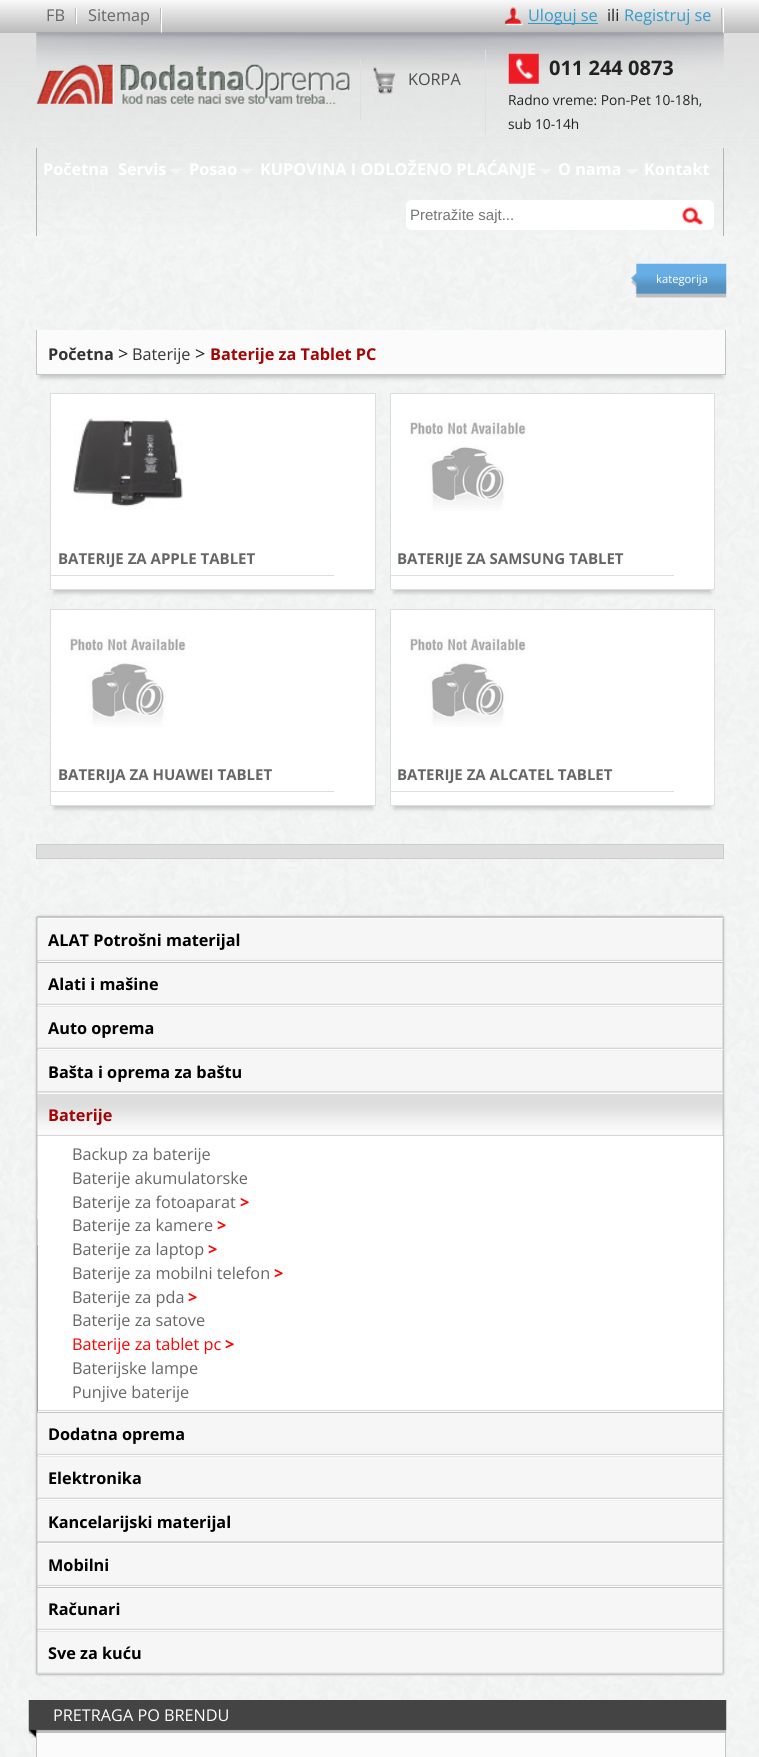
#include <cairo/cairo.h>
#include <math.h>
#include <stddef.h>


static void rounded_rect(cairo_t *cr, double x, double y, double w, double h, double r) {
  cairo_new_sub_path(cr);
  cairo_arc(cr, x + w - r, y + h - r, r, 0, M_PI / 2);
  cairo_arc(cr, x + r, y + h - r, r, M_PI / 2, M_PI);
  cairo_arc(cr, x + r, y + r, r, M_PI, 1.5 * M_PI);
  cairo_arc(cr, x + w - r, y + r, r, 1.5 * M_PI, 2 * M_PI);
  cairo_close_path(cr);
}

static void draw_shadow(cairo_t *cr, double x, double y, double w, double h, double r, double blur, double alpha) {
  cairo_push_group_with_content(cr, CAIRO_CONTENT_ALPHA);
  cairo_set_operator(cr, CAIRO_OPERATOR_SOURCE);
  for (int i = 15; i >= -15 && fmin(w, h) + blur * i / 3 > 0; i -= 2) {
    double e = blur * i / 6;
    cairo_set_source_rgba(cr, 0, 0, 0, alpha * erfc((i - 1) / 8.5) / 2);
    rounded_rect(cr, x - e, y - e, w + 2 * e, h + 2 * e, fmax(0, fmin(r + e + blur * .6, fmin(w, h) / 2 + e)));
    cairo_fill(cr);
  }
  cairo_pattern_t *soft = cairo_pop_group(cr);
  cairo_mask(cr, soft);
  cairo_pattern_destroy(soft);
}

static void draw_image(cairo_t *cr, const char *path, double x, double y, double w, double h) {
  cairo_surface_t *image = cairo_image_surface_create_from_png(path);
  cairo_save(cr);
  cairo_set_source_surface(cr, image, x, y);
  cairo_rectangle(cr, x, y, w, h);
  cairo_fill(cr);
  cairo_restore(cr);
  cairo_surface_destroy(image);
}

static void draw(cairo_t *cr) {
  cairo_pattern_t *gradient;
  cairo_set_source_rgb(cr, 1, 1, 1);
  cairo_paint(cr);
  draw_image(cr, "images/1.png", 0, 33, 759, 1724);
  gradient = cairo_pattern_create_linear(380, 0, 380, 33);
  cairo_pattern_add_color_stop_rgba(gradient, 0.02, 248 / 255.0, 248 / 255.0, 248 / 255.0, 1);
  cairo_pattern_add_color_stop_rgba(gradient, 1, 186 / 255.0, 186 / 255.0, 186 / 255.0, 1);
  cairo_set_source(cr, gradient);
  cairo_pattern_destroy(gradient);
  cairo_rectangle(cr, 0, 0, 759, 33);
  cairo_fill(cr);
  cairo_set_source_rgb(cr, 1, 1, 1);
  cairo_rectangle(cr, 161, 8, 1, 25);
  cairo_fill(cr);
  cairo_set_source_rgb(cr, 187 / 255.0, 187 / 255.0, 187 / 255.0);
  cairo_rectangle(cr, 75, 8, 1, 16);
  cairo_fill(cr);
  cairo_rectangle(cr, 160, 8, 1, 16);
  cairo_fill(cr);
  cairo_set_source_rgb(cr, 1, 1, 1);
  cairo_rectangle(cr, 76, 8, 1, 16);
  cairo_fill(cr);
  cairo_rectangle(cr, 723, 8, 1, 25);
  cairo_fill(cr);
  draw_image(cr, "images/2.png", 504, 7, 19, 19);
  cairo_set_source_rgb(cr, 48 / 255.0, 156 / 255.0, 205 / 255.0);
  cairo_rectangle(cr, 528, 23, 70, 1);
  cairo_fill(cr);
  cairo_set_source_rgb(cr, 187 / 255.0, 187 / 255.0, 187 / 255.0);
  cairo_rectangle(cr, 721, 8, 1, 25);
  cairo_fill(cr);
  draw_image(cr, "images/3.png", 36, 32, 688, 38);
  draw_image(cr, "images/4.png", 36, 64, 315, 40);
  cairo_set_source_rgb(cr, 222 / 255.0, 222 / 255.0, 222 / 255.0);
  cairo_rectangle(cr, 360, 59, 1, 61);
  cairo_fill(cr);
  draw_image(cr, "images/5.png", 373, 67, 23, 27);
  draw_image(cr, "images/6.png", 508, 53, 31, 31);
  cairo_rectangle(cr, 485, 50, 1, 85);
  cairo_fill(cr);
  cairo_set_source_rgb(cr, 179 / 255.0, 179 / 255.0, 179 / 255.0);
  cairo_rectangle(cr, 723, 148, 1, 88);
  cairo_fill(cr);
  cairo_rectangle(cr, 36, 148, 1, 88);
  cairo_fill(cr);
  draw_image(cr, "images/7.png", 170, 169, 11, 6);
  draw_image(cr, "images/8.png", 241, 169, 12, 6);
  draw_image(cr, "images/9.png", 540, 169, 11, 6);
  draw_image(cr, "images/10.png", 626, 169, 12, 6);
  cairo_set_source_rgb(cr, 1, 1, 1);
  cairo_new_path(cr);
  cairo_move_to(cr, 412, 200);
  cairo_line_to(cr, 670, 200);
  cairo_line_to(cr, 670, 230);
  cairo_line_to(cr, 412, 230);
  cairo_curve_to(cr, 408.5, 230, 406, 227.5, 406, 224);
  cairo_line_to(cr, 406, 206);
  cairo_curve_to(cr, 406, 202.5, 408.5, 200, 412, 200);
  cairo_close_path(cr);
  cairo_fill(cr);
  cairo_new_path(cr);
  cairo_move_to(cr, 670, 200);
  cairo_line_to(cr, 708, 200);
  cairo_curve_to(cr, 711.5, 200, 714, 202.5, 714, 206);
  cairo_line_to(cr, 714, 224);
  cairo_curve_to(cr, 714, 227.5, 711.5, 230, 708, 230);
  cairo_line_to(cr, 670, 230);
  cairo_close_path(cr);
  cairo_fill(cr);
  draw_image(cr, "images/11.png", 682, 207, 21, 19);
  draw_image(cr, "images/12.png", 630, 263, 97, 38);
  cairo_set_source_rgb(cr, 197 / 255.0, 197 / 255.0, 197 / 255.0);
  draw_shadow(cr, 40, 340, 683, 38, 0, 2, 1);
  cairo_set_source_rgb(cr, 251 / 255.0, 251 / 255.0, 251 / 255.0);
  cairo_rectangle(cr, 37, 330, 688, 44);
  cairo_fill(cr);
  cairo_set_source_rgb(cr, 196 / 255.0, 196 / 255.0, 196 / 255.0);
  cairo_rectangle(cr, 725, 330, 1, 45);
  cairo_fill(cr);
  cairo_rectangle(cr, 36, 374, 690, 1);
  cairo_fill(cr);
  cairo_rectangle(cr, 36, 330, 1, 45);
  cairo_fill(cr);
  cairo_set_source_rgb(cr, 197 / 255.0, 197 / 255.0, 197 / 255.0);
  draw_shadow(cr, 54, 403, 319, 190, 0, 2, 1);
  cairo_set_source_rgb(cr, 1, 1, 1);
  cairo_rectangle(cr, 50.5, 393.5, 325, 196);
  cairo_fill_preserve(cr);
  cairo_set_source_rgb(cr, 221 / 255.0, 221 / 255.0, 221 / 255.0);
  cairo_set_line_width(cr, 1);
  cairo_stroke(cr);
  draw_image(cr, "images/13.png", 73, 418, 110, 92);
  cairo_rectangle(cr, 51, 575, 283, 1);
  cairo_fill(cr);
  cairo_set_source_rgb(cr, 197 / 255.0, 197 / 255.0, 197 / 255.0);
  draw_shadow(cr, 394, 403, 317, 190, 0, 2, 1);
  cairo_set_source_rgb(cr, 1, 1, 1);
  cairo_rectangle(cr, 390.5, 393.5, 324, 196);
  cairo_fill_preserve(cr);
  cairo_set_source_rgb(cr, 221 / 255.0, 221 / 255.0, 221 / 255.0);
  cairo_stroke(cr);
  draw_image(cr, "images/14.png", 410, 419, 116, 92);
  cairo_rectangle(cr, 391, 575, 283, 1);
  cairo_fill(cr);
  cairo_set_source_rgb(cr, 197 / 255.0, 197 / 255.0, 197 / 255.0);
  draw_shadow(cr, 54, 619, 319, 190, 0, 2, 1);
  cairo_set_source_rgb(cr, 1, 1, 1);
  cairo_rectangle(cr, 50.5, 609.5, 325, 196);
  cairo_fill_preserve(cr);
  cairo_set_source_rgb(cr, 221 / 255.0, 221 / 255.0, 221 / 255.0);
  cairo_stroke(cr);
  draw_image(cr, "images/15.png", 70, 636, 116, 91);
  cairo_rectangle(cr, 51, 791, 283, 1);
  cairo_fill(cr);
  cairo_set_source_rgb(cr, 197 / 255.0, 197 / 255.0, 197 / 255.0);
  draw_shadow(cr, 394, 619, 317, 190, 0, 2, 1);
  cairo_set_source_rgb(cr, 1, 1, 1);
  cairo_rectangle(cr, 390.5, 609.5, 324, 196);
  cairo_fill_preserve(cr);
  cairo_set_source_rgb(cr, 221 / 255.0, 221 / 255.0, 221 / 255.0);
  cairo_stroke(cr);
  draw_image(cr, "images/16.png", 410, 636, 116, 91);
  cairo_rectangle(cr, 391, 791, 283, 1);
  cairo_fill(cr);
  cairo_set_source_rgb(cr, 222 / 255.0, 222 / 255.0, 222 / 255.0);
  cairo_rectangle(cr, 36.5, 844.5, 687, 14);
  cairo_fill_preserve(cr);
  cairo_set_source_rgb(cr, 204 / 255.0, 204 / 255.0, 204 / 255.0);
  cairo_stroke(cr);
  cairo_set_source_rgb(cr, 197 / 255.0, 197 / 255.0, 197 / 255.0);
  draw_shadow(cr, 36, 916, 688, 759, 2.5, 1, 1);
  rounded_rect(cr, 36.5, 916.5, 687, 758, 2);
  cairo_set_source_rgb(cr, 197 / 255.0, 197 / 255.0, 197 / 255.0);
  cairo_stroke(cr);
  draw_image(cr, "images/17.png", 37, 919, 686, 43);
  cairo_set_source_rgb(cr, 253 / 255.0, 253 / 255.0, 253 / 255.0);
  cairo_rectangle(cr, 38, 918, 685, 1);
  cairo_fill(cr);
  cairo_set_source_rgb(cr, 215 / 255.0, 215 / 255.0, 215 / 255.0);
  cairo_rectangle(cr, 38, 960, 685, 1);
  cairo_fill(cr);
  draw_image(cr, "images/18.png", 37, 963, 686, 42);
  cairo_set_source_rgb(cr, 253 / 255.0, 253 / 255.0, 253 / 255.0);
  cairo_rectangle(cr, 38, 961, 685, 1);
  cairo_fill(cr);
  cairo_set_source_rgb(cr, 215 / 255.0, 215 / 255.0, 215 / 255.0);
  cairo_rectangle(cr, 38, 1004, 685, 1);
  cairo_fill(cr);
  draw_image(cr, "images/19.png", 37, 1006, 686, 43);
  cairo_set_source_rgb(cr, 253 / 255.0, 253 / 255.0, 253 / 255.0);
  cairo_rectangle(cr, 38, 1005, 685, 1);
  cairo_fill(cr);
  cairo_set_source_rgb(cr, 215 / 255.0, 215 / 255.0, 215 / 255.0);
  cairo_rectangle(cr, 722, 1048, 1, 1);
  cairo_fill(cr);
  draw_image(cr, "images/20.png", 37, 1050, 686, 43);
  cairo_set_source_rgb(cr, 253 / 255.0, 253 / 255.0, 253 / 255.0);
  cairo_rectangle(cr, 38, 1049, 685, 1);
  cairo_fill(cr);
  cairo_set_source_rgb(cr, 215 / 255.0, 215 / 255.0, 215 / 255.0);
  cairo_rectangle(cr, 38, 1091, 685, 1);
  cairo_fill(cr);
  draw_image(cr, "images/21.png", 37, 1092, 686, 43);
  cairo_set_source_rgb(cr, 253 / 255.0, 253 / 255.0, 253 / 255.0);
  cairo_rectangle(cr, 38, 1093, 685, 1);
  cairo_fill(cr);
  cairo_set_source_rgb(cr, 215 / 255.0, 215 / 255.0, 215 / 255.0);
  cairo_rectangle(cr, 38, 1135, 685, 1);
  cairo_fill(cr);
  draw_image(cr, "images/22.png", 37, 1136, 1, 276);
  cairo_set_source_rgb(cr, 1, 1, 1);
  cairo_rectangle(cr, 38, 1136, 685, 274);
  cairo_fill(cr);
  cairo_set_source_rgb(cr, 215 / 255.0, 215 / 255.0, 215 / 255.0);
  cairo_rectangle(cr, 38, 1410, 685, 1);
  cairo_fill(cr);
  draw_image(cr, "images/23.png", 37, 1413, 686, 42);
  cairo_set_source_rgb(cr, 253 / 255.0, 253 / 255.0, 253 / 255.0);
  cairo_rectangle(cr, 38, 1411, 685, 1);
  cairo_fill(cr);
  cairo_set_source_rgb(cr, 215 / 255.0, 215 / 255.0, 215 / 255.0);
  cairo_rectangle(cr, 38, 1454, 685, 1);
  cairo_fill(cr);
  draw_image(cr, "images/24.png", 37, 1456, 686, 43);
  cairo_set_source_rgb(cr, 253 / 255.0, 253 / 255.0, 253 / 255.0);
  cairo_rectangle(cr, 38, 1455, 685, 1);
  cairo_fill(cr);
  cairo_set_source_rgb(cr, 215 / 255.0, 215 / 255.0, 215 / 255.0);
  cairo_rectangle(cr, 722, 1498, 1, 1);
  cairo_fill(cr);
  draw_image(cr, "images/25.png", 37, 1500, 686, 43);
  cairo_set_source_rgb(cr, 253 / 255.0, 253 / 255.0, 253 / 255.0);
  cairo_rectangle(cr, 38, 1499, 685, 1);
  cairo_fill(cr);
  cairo_set_source_rgb(cr, 215 / 255.0, 215 / 255.0, 215 / 255.0);
  cairo_rectangle(cr, 38, 1541, 685, 1);
  cairo_fill(cr);
  draw_image(cr, "images/26.png", 37, 1544, 686, 43);
  cairo_set_source_rgb(cr, 253 / 255.0, 253 / 255.0, 253 / 255.0);
  cairo_rectangle(cr, 38, 1543, 685, 1);
  cairo_fill(cr);
  cairo_set_source_rgb(cr, 215 / 255.0, 215 / 255.0, 215 / 255.0);
  cairo_rectangle(cr, 38, 1585, 685, 1);
  cairo_fill(cr);
  draw_image(cr, "images/27.png", 37, 1588, 686, 42);
  cairo_set_source_rgb(cr, 253 / 255.0, 253 / 255.0, 253 / 255.0);
  cairo_rectangle(cr, 38, 1586, 685, 1);
  cairo_fill(cr);
  cairo_set_source_rgb(cr, 215 / 255.0, 215 / 255.0, 215 / 255.0);
  cairo_rectangle(cr, 38, 1629, 685, 1);
  cairo_fill(cr);
  draw_image(cr, "images/28.png", 37, 1631, 686, 43);
  cairo_set_source_rgb(cr, 253 / 255.0, 253 / 255.0, 253 / 255.0);
  cairo_rectangle(cr, 38, 1630, 685, 1);
  cairo_fill(cr);
  cairo_set_source_rgb(cr, 215 / 255.0, 215 / 255.0, 215 / 255.0);
  cairo_rectangle(cr, 722, 1673, 1, 1);
  cairo_fill(cr);
  draw_image(cr, "images/29.png", 28, 1700, 699, 38);
  cairo_set_source_rgb(cr, 251 / 255.0, 251 / 255.0, 251 / 255.0);
  cairo_rectangle(cr, 37, 1733, 688, 24);
  cairo_fill(cr);
  cairo_set_source_rgb(cr, 196 / 255.0, 196 / 255.0, 196 / 255.0);
  cairo_rectangle(cr, 725, 1733, 1, 24);
  cairo_fill(cr);
  cairo_rectangle(cr, 36, 1733, 1, 24);
  cairo_fill(cr);
  cairo_select_font_face(cr, "Open Sans", CAIRO_FONT_SLANT_NORMAL, CAIRO_FONT_WEIGHT_NORMAL);
  cairo_set_font_size(cr, 16.25);
  cairo_set_source_rgb(cr, 102 / 255.0, 102 / 255.0, 102 / 255.0);
  cairo_move_to(cr, 46, 21);
  cairo_show_text(cr, "FB");
  cairo_move_to(cr, 88, 21);
  cairo_show_text(cr, "Sitemap");
  cairo_set_source_rgb(cr, 48 / 255.0, 156 / 255.0, 205 / 255.0);
  cairo_move_to(cr, 528, 21);
  cairo_show_text(cr, "Uloguj se");
  cairo_set_source_rgb(cr, 34 / 255.0, 34 / 255.0, 34 / 255.0);
  cairo_move_to(cr, 607, 21);
  cairo_show_text(cr, "ili");
  cairo_set_source_rgb(cr, 48 / 255.0, 156 / 255.0, 205 / 255.0);
  cairo_move_to(cr, 624, 21);
  cairo_show_text(cr, "Registruj se");
  cairo_set_source_rgb(cr, 76 / 255.0, 76 / 255.0, 76 / 255.0);
  cairo_move_to(cr, 408, 85);
  cairo_show_text(cr, "KORPA");
  cairo_select_font_face(cr, "Open Sans", CAIRO_FONT_SLANT_NORMAL, CAIRO_FONT_WEIGHT_BOLD);
  cairo_set_font_size(cr, 20);
  cairo_set_source_rgb(cr, 34 / 255.0, 34 / 255.0, 34 / 255.0);
  cairo_move_to(cr, 549, 75);
  cairo_show_text(cr, "011 244 0873");
  cairo_select_font_face(cr, "Open Sans", CAIRO_FONT_SLANT_NORMAL, CAIRO_FONT_WEIGHT_NORMAL);
  cairo_set_font_size(cr, 13.75);
  cairo_move_to(cr, 508, 105);
  cairo_show_text(cr, "Radno vreme: Pon-Pet 10-18h,");
  cairo_move_to(cr, 508, 129);
  cairo_show_text(cr, "sub 10-14h");
  cairo_select_font_face(cr, "Open Sans", CAIRO_FONT_SLANT_NORMAL, CAIRO_FONT_WEIGHT_BOLD);
  cairo_set_font_size(cr, 16.25);
  cairo_set_source_rgb(cr, 1, 1, 1);
  cairo_move_to(cr, 43, 175);
  cairo_show_text(cr, "Početna");
  cairo_move_to(cr, 118, 175);
  cairo_show_text(cr, "Servis");
  cairo_move_to(cr, 189, 175);
  cairo_show_text(cr, "Posao");
  cairo_move_to(cr, 260, 175);
  cairo_show_text(cr, "KUPOVINA I ODLOŽENO PLAĆANJE");
  cairo_move_to(cr, 558, 175);
  cairo_show_text(cr, "O nama");
  cairo_move_to(cr, 644, 175);
  cairo_show_text(cr, "Kontakt");
  cairo_select_font_face(cr, "Liberation Sans", CAIRO_FONT_SLANT_NORMAL, CAIRO_FONT_WEIGHT_NORMAL);
  cairo_set_font_size(cr, 15);
  cairo_set_source_rgb(cr, 117 / 255.0, 117 / 255.0, 117 / 255.0);
  cairo_move_to(cr, 410, 220);
  cairo_show_text(cr, "Pretražite sajt...");
  cairo_select_font_face(cr, "Open Sans", CAIRO_FONT_SLANT_NORMAL, CAIRO_FONT_WEIGHT_NORMAL);
  cairo_set_font_size(cr, 11.25);
  cairo_set_source_rgb(cr, 1, 1, 1);
  cairo_move_to(cr, 656, 283);
  cairo_show_text(cr, "kategorija");
  cairo_select_font_face(cr, "Open Sans", CAIRO_FONT_SLANT_NORMAL, CAIRO_FONT_WEIGHT_BOLD);
  cairo_set_font_size(cr, 16.25);
  cairo_set_source_rgb(cr, 51 / 255.0, 51 / 255.0, 51 / 255.0);
  cairo_move_to(cr, 48, 360);
  cairo_show_text(cr, "Početna");
  cairo_select_font_face(cr, "Open Sans", CAIRO_FONT_SLANT_NORMAL, CAIRO_FONT_WEIGHT_NORMAL);
  cairo_set_font_size(cr, 18);
  cairo_set_source_rgb(cr, 34 / 255.0, 34 / 255.0, 34 / 255.0);
  cairo_move_to(cr, 118, 360);
  cairo_show_text(cr, ">");
  cairo_set_font_size(cr, 16.25);
  cairo_set_source_rgb(cr, 51 / 255.0, 51 / 255.0, 51 / 255.0);
  cairo_move_to(cr, 132, 360);
  cairo_show_text(cr, "Baterije");
  cairo_set_font_size(cr, 18);
  cairo_set_source_rgb(cr, 34 / 255.0, 34 / 255.0, 34 / 255.0);
  cairo_move_to(cr, 195, 360);
  cairo_show_text(cr, ">");
  cairo_select_font_face(cr, "Open Sans", CAIRO_FONT_SLANT_NORMAL, CAIRO_FONT_WEIGHT_BOLD);
  cairo_set_font_size(cr, 16.25);
  cairo_set_source_rgb(cr, 162 / 255.0, 6 / 255.0, 6 / 255.0);
  cairo_move_to(cr, 210, 360);
  cairo_show_text(cr, "Baterije za Tablet PC");
  cairo_set_font_size(cr, 15);
  cairo_set_source_rgb(cr, 102 / 255.0, 102 / 255.0, 102 / 255.0);
  cairo_move_to(cr, 58, 564);
  cairo_show_text(cr, "BATERIJE ZA APPLE TABLET");
  cairo_move_to(cr, 397, 564);
  cairo_show_text(cr, "BATERIJE ZA SAMSUNG TABLET");
  cairo_move_to(cr, 58, 780);
  cairo_show_text(cr, "BATERIJA ZA HUAWEI TABLET");
  cairo_move_to(cr, 397, 780);
  cairo_show_text(cr, "BATERIJE ZA ALCATEL TABLET");
  cairo_set_font_size(cr, 16.25);
  cairo_set_source_rgb(cr, 0, 0, 0);
  cairo_move_to(cr, 48, 946);
  cairo_show_text(cr, "ALAT Potrošni materijal");
  cairo_move_to(cr, 48, 990);
  cairo_show_text(cr, "Alati i mašine");
  cairo_move_to(cr, 48, 1034);
  cairo_show_text(cr, "Auto oprema");
  cairo_move_to(cr, 48, 1078);
  cairo_show_text(cr, "Bašta i oprema za baštu");
  cairo_set_source_rgb(cr, 162 / 255.0, 6 / 255.0, 6 / 255.0);
  cairo_move_to(cr, 48, 1121);
  cairo_show_text(cr, "Baterije");
  cairo_select_font_face(cr, "Open Sans", CAIRO_FONT_SLANT_NORMAL, CAIRO_FONT_WEIGHT_NORMAL);
  cairo_set_source_rgb(cr, 102 / 255.0, 102 / 255.0, 102 / 255.0);
  cairo_move_to(cr, 72, 1160);
  cairo_show_text(cr, "Backup za baterije");
  cairo_move_to(cr, 72, 1184);
  cairo_show_text(cr, "Baterije akumulatorske");
  cairo_move_to(cr, 72, 1208);
  cairo_show_text(cr, "Baterije za fotoaparat");
  cairo_select_font_face(cr, "Open Sans", CAIRO_FONT_SLANT_NORMAL, CAIRO_FONT_WEIGHT_BOLD);
  cairo_set_source_rgb(cr, 1, 0, 0);
  cairo_move_to(cr, 240, 1208);
  cairo_show_text(cr, ">");
  cairo_select_font_face(cr, "Open Sans", CAIRO_FONT_SLANT_NORMAL, CAIRO_FONT_WEIGHT_NORMAL);
  cairo_set_source_rgb(cr, 102 / 255.0, 102 / 255.0, 102 / 255.0);
  cairo_move_to(cr, 72, 1231);
  cairo_show_text(cr, "Baterije za kamere");
  cairo_select_font_face(cr, "Open Sans", CAIRO_FONT_SLANT_NORMAL, CAIRO_FONT_WEIGHT_BOLD);
  cairo_set_source_rgb(cr, 1, 0, 0);
  cairo_move_to(cr, 217, 1231);
  cairo_show_text(cr, ">");
  cairo_select_font_face(cr, "Open Sans", CAIRO_FONT_SLANT_NORMAL, CAIRO_FONT_WEIGHT_NORMAL);
  cairo_set_source_rgb(cr, 102 / 255.0, 102 / 255.0, 102 / 255.0);
  cairo_move_to(cr, 72, 1255);
  cairo_show_text(cr, "Baterije za laptop");
  cairo_select_font_face(cr, "Open Sans", CAIRO_FONT_SLANT_NORMAL, CAIRO_FONT_WEIGHT_BOLD);
  cairo_set_source_rgb(cr, 1, 0, 0);
  cairo_move_to(cr, 208, 1255);
  cairo_show_text(cr, ">");
  cairo_select_font_face(cr, "Open Sans", CAIRO_FONT_SLANT_NORMAL, CAIRO_FONT_WEIGHT_NORMAL);
  cairo_set_source_rgb(cr, 102 / 255.0, 102 / 255.0, 102 / 255.0);
  cairo_move_to(cr, 72, 1279);
  cairo_show_text(cr, "Baterije za mobilni telefon");
  cairo_select_font_face(cr, "Open Sans", CAIRO_FONT_SLANT_NORMAL, CAIRO_FONT_WEIGHT_BOLD);
  cairo_set_source_rgb(cr, 1, 0, 0);
  cairo_move_to(cr, 274, 1279);
  cairo_show_text(cr, ">");
  cairo_select_font_face(cr, "Open Sans", CAIRO_FONT_SLANT_NORMAL, CAIRO_FONT_WEIGHT_NORMAL);
  cairo_set_source_rgb(cr, 102 / 255.0, 102 / 255.0, 102 / 255.0);
  cairo_move_to(cr, 72, 1303);
  cairo_show_text(cr, "Baterije za pda");
  cairo_select_font_face(cr, "Open Sans", CAIRO_FONT_SLANT_NORMAL, CAIRO_FONT_WEIGHT_BOLD);
  cairo_set_source_rgb(cr, 1, 0, 0);
  cairo_move_to(cr, 188, 1303);
  cairo_show_text(cr, ">");
  cairo_select_font_face(cr, "Open Sans", CAIRO_FONT_SLANT_NORMAL, CAIRO_FONT_WEIGHT_NORMAL);
  cairo_set_source_rgb(cr, 102 / 255.0, 102 / 255.0, 102 / 255.0);
  cairo_move_to(cr, 72, 1326);
  cairo_show_text(cr, "Baterije za satove");
  cairo_set_source_rgb(cr, 1, 0, 0);
  cairo_move_to(cr, 72, 1350);
  cairo_show_text(cr, "Baterije za tablet pc");
  cairo_select_font_face(cr, "Open Sans", CAIRO_FONT_SLANT_NORMAL, CAIRO_FONT_WEIGHT_BOLD);
  cairo_move_to(cr, 225, 1350);
  cairo_show_text(cr, ">");
  cairo_select_font_face(cr, "Open Sans", CAIRO_FONT_SLANT_NORMAL, CAIRO_FONT_WEIGHT_NORMAL);
  cairo_set_source_rgb(cr, 102 / 255.0, 102 / 255.0, 102 / 255.0);
  cairo_move_to(cr, 72, 1374);
  cairo_show_text(cr, "Baterijske lampe");
  cairo_move_to(cr, 72, 1398);
  cairo_show_text(cr, "Punjive baterije");
  cairo_select_font_face(cr, "Open Sans", CAIRO_FONT_SLANT_NORMAL, CAIRO_FONT_WEIGHT_BOLD);
  cairo_set_source_rgb(cr, 0, 0, 0);
  cairo_move_to(cr, 48, 1440);
  cairo_show_text(cr, "Dodatna oprema");
  cairo_move_to(cr, 48, 1484);
  cairo_show_text(cr, "Elektronika");
  cairo_move_to(cr, 48, 1528);
  cairo_show_text(cr, "Kancelarijski materijal");
  cairo_move_to(cr, 48, 1571);
  cairo_show_text(cr, "Mobilni");
  cairo_move_to(cr, 48, 1615);
  cairo_show_text(cr, "Računari");
  cairo_move_to(cr, 48, 1659);
  cairo_show_text(cr, "Sve za kuću");
  cairo_select_font_face(cr, "Open Sans", CAIRO_FONT_SLANT_NORMAL, CAIRO_FONT_WEIGHT_NORMAL);
  cairo_set_source_rgb(cr, 1, 1, 1);
  cairo_move_to(cr, 53, 1721);
  cairo_show_text(cr, "PRETRAGA PO BRENDU");
}

int main(void) {
  cairo_surface_t *surface = cairo_image_surface_create(CAIRO_FORMAT_RGB24, 759, 1757);
  cairo_t *cr = cairo_create(surface);
  cairo_font_options_t *options = cairo_font_options_create();
  cairo_font_options_set_hint_metrics(options, CAIRO_HINT_METRICS_OFF);
  cairo_font_options_set_hint_style(options, CAIRO_HINT_STYLE_NONE);
  cairo_set_font_options(cr, options);
  cairo_set_miter_limit(cr, 4);
  draw(cr);
  cairo_surface_write_to_png(surface, "out.png");
  cairo_font_options_destroy(options);
  cairo_destroy(cr);
  cairo_surface_destroy(surface);
  return 0;
}
